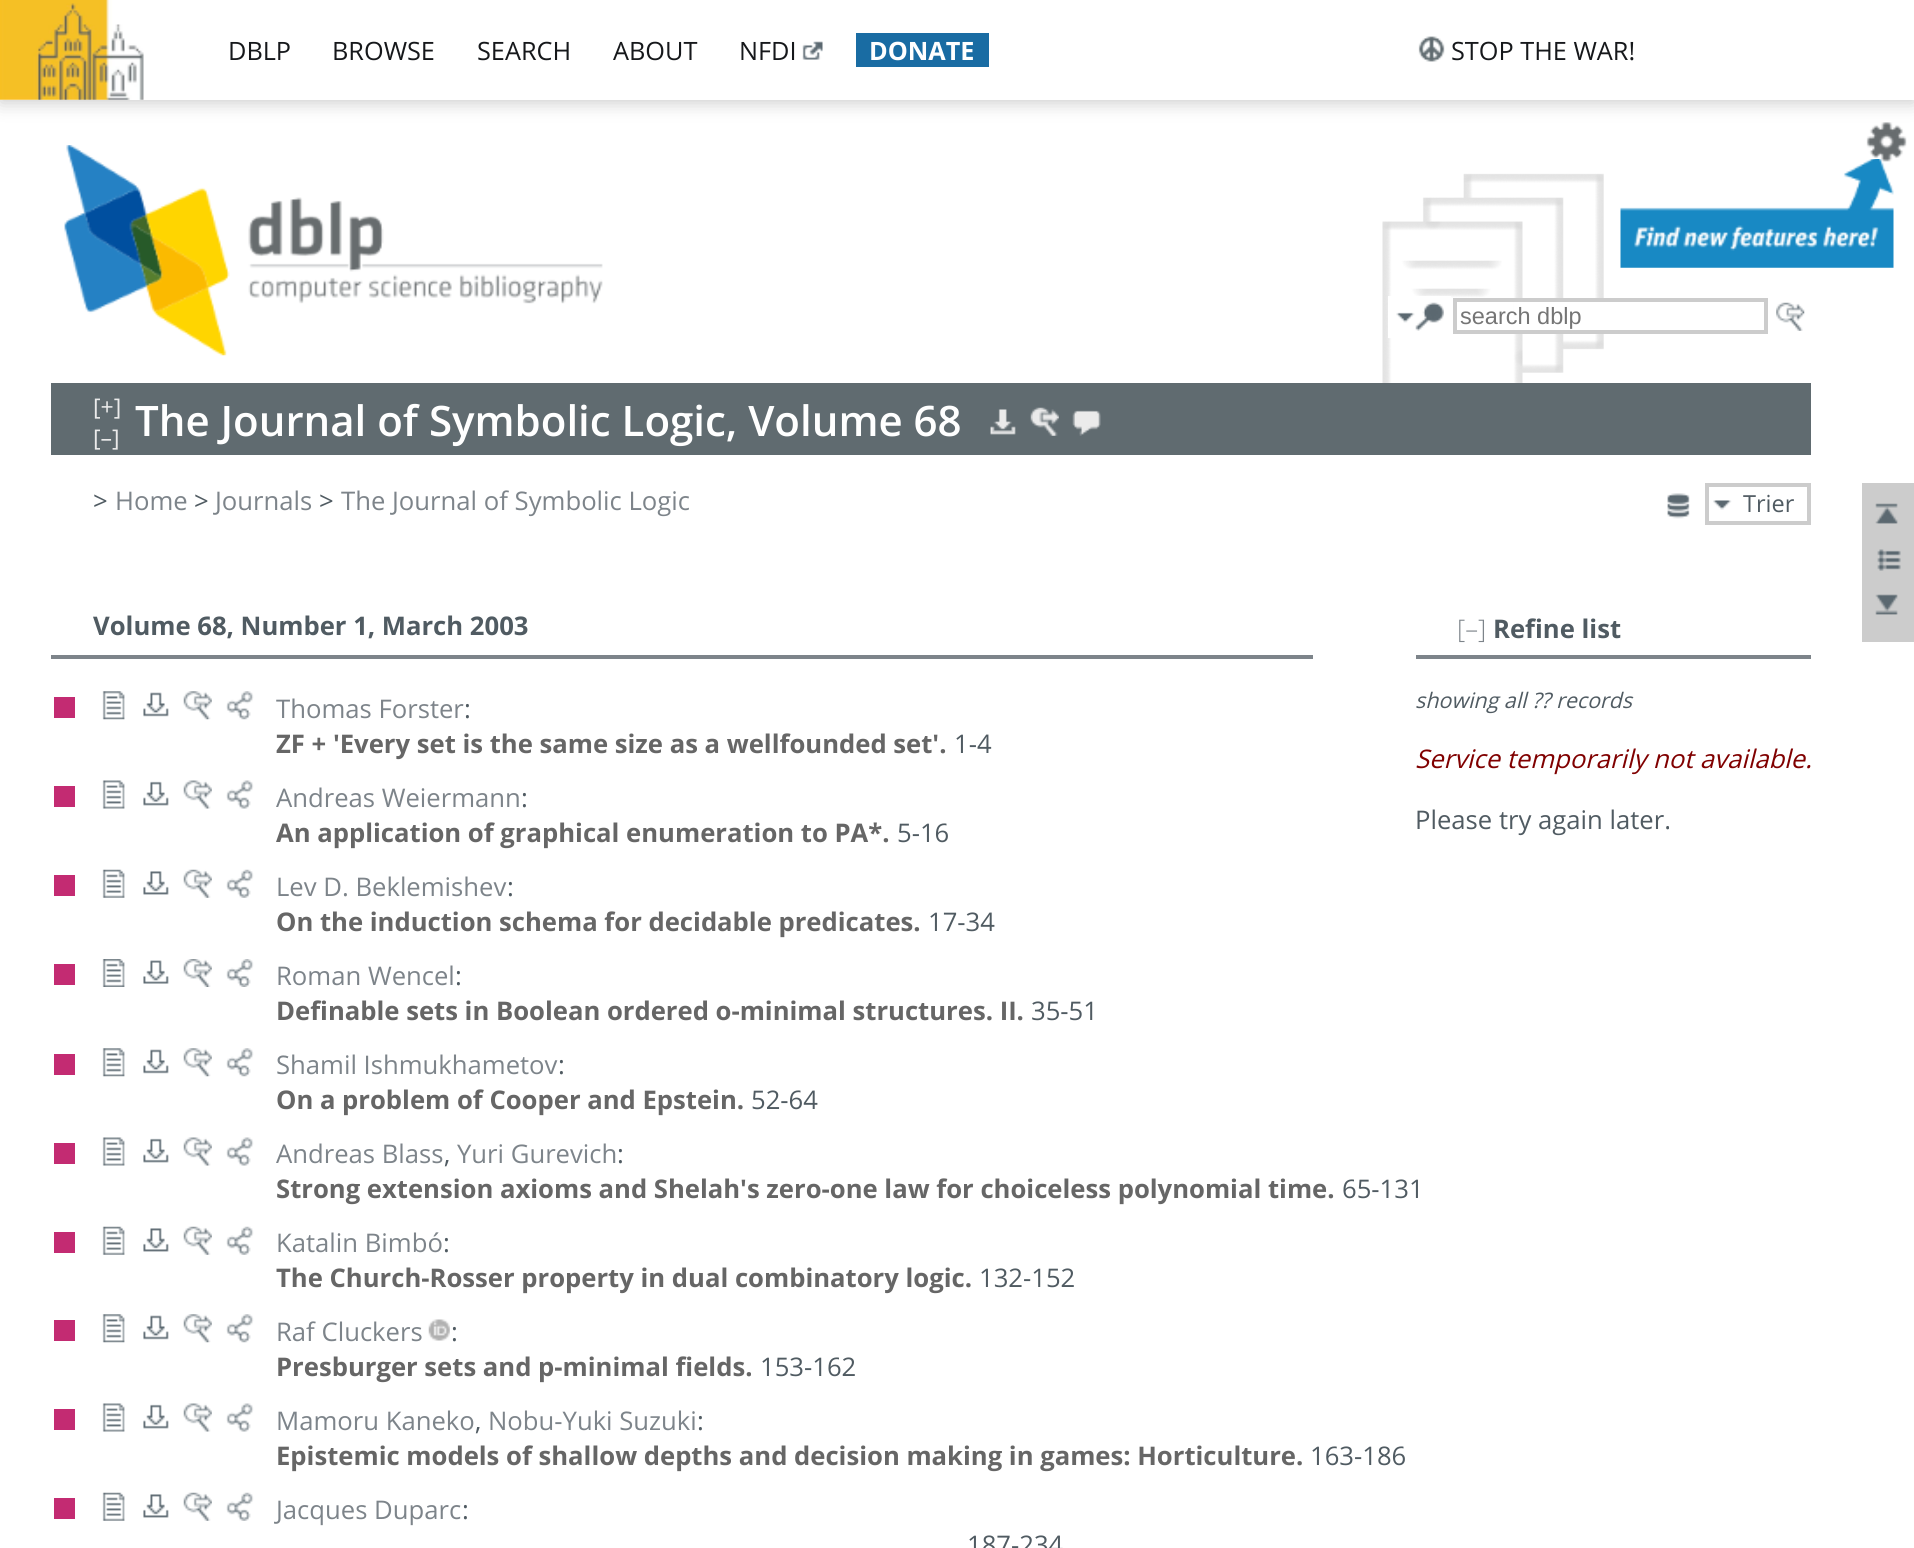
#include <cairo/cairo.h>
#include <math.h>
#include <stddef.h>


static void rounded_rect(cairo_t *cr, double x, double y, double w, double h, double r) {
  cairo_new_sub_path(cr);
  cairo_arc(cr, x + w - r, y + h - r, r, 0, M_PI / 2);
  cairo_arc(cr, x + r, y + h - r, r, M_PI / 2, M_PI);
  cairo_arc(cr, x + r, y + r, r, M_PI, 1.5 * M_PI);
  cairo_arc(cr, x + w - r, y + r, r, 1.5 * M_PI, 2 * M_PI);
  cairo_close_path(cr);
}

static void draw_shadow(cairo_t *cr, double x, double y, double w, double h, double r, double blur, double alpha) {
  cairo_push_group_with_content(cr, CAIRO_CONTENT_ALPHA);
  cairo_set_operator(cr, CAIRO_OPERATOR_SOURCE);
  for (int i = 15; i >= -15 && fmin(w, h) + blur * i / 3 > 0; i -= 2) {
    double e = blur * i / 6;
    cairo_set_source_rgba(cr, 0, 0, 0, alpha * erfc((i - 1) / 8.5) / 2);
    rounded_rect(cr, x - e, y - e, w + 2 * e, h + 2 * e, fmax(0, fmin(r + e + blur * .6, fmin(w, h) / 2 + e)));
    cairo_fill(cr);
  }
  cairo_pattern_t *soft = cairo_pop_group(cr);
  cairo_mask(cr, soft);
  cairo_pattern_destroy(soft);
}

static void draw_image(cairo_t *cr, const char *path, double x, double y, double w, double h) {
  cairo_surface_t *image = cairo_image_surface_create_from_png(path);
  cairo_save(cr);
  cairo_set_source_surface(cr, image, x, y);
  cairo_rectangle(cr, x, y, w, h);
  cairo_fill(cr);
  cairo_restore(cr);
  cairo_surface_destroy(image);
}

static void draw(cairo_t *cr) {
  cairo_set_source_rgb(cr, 1, 1, 1);
  cairo_paint(cr);
  draw_image(cr, "images/7.png", 1620, 159, 274, 109);
  draw_image(cr, "images/6.png", 1866, 122, 41, 40);
  cairo_set_source_rgb(cr, 0, 0, 0);
  draw_shadow(cr, 0, 4, 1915, 99, 0, 9, 0.2);
  cairo_set_source_rgb(cr, 1, 1, 1);
  cairo_rectangle(cr, 0, 0, 1914, 100);
  cairo_fill(cr);
  draw_image(cr, "images/1.png", 0, 0, 144, 100);
  draw_image(cr, "images/2.png", 802, 41, 21, 19);
  cairo_set_source_rgb(cr, 25 / 255.0, 108 / 255.0, 163 / 255.0);
  cairo_rectangle(cr, 856, 33, 133, 34);
  cairo_fill(cr);
  draw_image(cr, "images/3.png", 1418, 36, 27, 26);
  draw_image(cr, "images/4.png", 1382, 173, 222, 210);
  draw_image(cr, "images/5.png", 64, 145, 539, 211);
  cairo_set_source_rgb(cr, 1, 1, 1);
  cairo_rectangle(cr, 1388, 296, 63, 42);
  cairo_fill(cr);
  draw_image(cr, "images/8.png", 1396, 312, 19, 11);
  draw_image(cr, "images/9.png", 1415, 302, 29, 29);
  cairo_rectangle(cr, 1514, 302, 90, 28);
  cairo_fill(cr);
  cairo_rectangle(cr, 1455, 300, 311, 32);
  cairo_set_source_rgb(cr, 204 / 255.0, 204 / 255.0, 204 / 255.0);
  cairo_set_line_width(cr, 4);
  cairo_stroke(cr);
  draw_image(cr, "images/10.png", 1776, 302, 29, 29);
  cairo_set_source_rgb(cr, 96 / 255.0, 107 / 255.0, 112 / 255.0);
  cairo_rectangle(cr, 51, 383, 1760, 72);
  cairo_fill(cr);
  draw_image(cr, "images/11.png", 990, 409, 26, 26);
  draw_image(cr, "images/12.png", 1030, 407, 29, 29);
  draw_image(cr, "images/13.png", 1072, 410, 29, 26);
  draw_image(cr, "images/14.png", 1667, 493, 23, 26);
  draw_image(cr, "images/15.png", 1713, 500, 19, 10);
  cairo_rectangle(cr, 1707, 485, 102, 38);
  cairo_set_source_rgb(cr, 204 / 255.0, 204 / 255.0, 204 / 255.0);
  cairo_stroke(cr);
  cairo_rectangle(cr, 1862, 483, 52, 159);
  cairo_fill(cr);
  draw_image(cr, "images/16.png", 1875, 503, 23, 21);
  draw_image(cr, "images/17.png", 1877, 549, 24, 22);
  draw_image(cr, "images/18.png", 1875, 594, 23, 21);
  cairo_set_source_rgb(cr, 125 / 255.0, 132 / 255.0, 138 / 255.0);
  cairo_rectangle(cr, 51, 655, 1262, 4);
  cairo_fill(cr);
  cairo_rectangle(cr, 1416, 655, 395, 4);
  cairo_fill(cr);
  cairo_set_source_rgb(cr, 195 / 255.0, 43 / 255.0, 114 / 255.0);
  cairo_rectangle(cr, 54, 697, 21, 21);
  cairo_fill(cr);
  draw_image(cr, "images/19.png", 102, 691, 23, 29);
  draw_image(cr, "images/20.png", 143, 692, 26, 25);
  draw_image(cr, "images/21.png", 183, 691, 29, 29);
  draw_image(cr, "images/22.png", 226, 691, 28, 29);
  cairo_rectangle(cr, 54, 786, 21, 21);
  cairo_fill(cr);
  draw_image(cr, "images/23.png", 102, 780, 23, 29);
  draw_image(cr, "images/24.png", 143, 781, 26, 25);
  draw_image(cr, "images/25.png", 183, 780, 29, 29);
  draw_image(cr, "images/26.png", 226, 780, 28, 29);
  cairo_rectangle(cr, 54, 875, 21, 21);
  cairo_fill(cr);
  draw_image(cr, "images/27.png", 102, 869, 23, 29);
  draw_image(cr, "images/28.png", 143, 871, 26, 24);
  draw_image(cr, "images/29.png", 183, 869, 29, 29);
  draw_image(cr, "images/30.png", 226, 869, 28, 29);
  cairo_rectangle(cr, 54, 964, 21, 21);
  cairo_fill(cr);
  draw_image(cr, "images/31.png", 102, 959, 23, 28);
  draw_image(cr, "images/32.png", 143, 960, 26, 24);
  draw_image(cr, "images/33.png", 183, 959, 29, 28);
  draw_image(cr, "images/34.png", 226, 959, 28, 28);
  cairo_rectangle(cr, 54, 1054, 21, 21);
  cairo_fill(cr);
  draw_image(cr, "images/19.png", 102, 1048, 23, 29);
  draw_image(cr, "images/20.png", 143, 1049, 26, 25);
  draw_image(cr, "images/21.png", 183, 1048, 29, 29);
  draw_image(cr, "images/22.png", 226, 1048, 28, 29);
  cairo_rectangle(cr, 54, 1143, 21, 21);
  cairo_fill(cr);
  draw_image(cr, "images/23.png", 102, 1137, 23, 29);
  draw_image(cr, "images/24.png", 143, 1138, 26, 25);
  draw_image(cr, "images/25.png", 183, 1137, 29, 29);
  draw_image(cr, "images/26.png", 226, 1137, 28, 29);
  cairo_rectangle(cr, 54, 1232, 21, 21);
  cairo_fill(cr);
  draw_image(cr, "images/27.png", 102, 1226, 23, 29);
  draw_image(cr, "images/28.png", 143, 1228, 26, 24);
  draw_image(cr, "images/29.png", 183, 1226, 29, 29);
  draw_image(cr, "images/30.png", 226, 1226, 28, 29);
  cairo_rectangle(cr, 54, 1320, 21, 21);
  cairo_fill(cr);
  draw_image(cr, "images/19.png", 102, 1314, 23, 29);
  draw_image(cr, "images/20.png", 143, 1315, 26, 25);
  draw_image(cr, "images/21.png", 183, 1314, 29, 29);
  draw_image(cr, "images/22.png", 226, 1314, 28, 29);
  draw_image(cr, "images/35.png", 428, 1319, 22, 22);
  cairo_rectangle(cr, 54, 1409, 21, 21);
  cairo_fill(cr);
  draw_image(cr, "images/23.png", 102, 1403, 23, 29);
  draw_image(cr, "images/24.png", 143, 1404, 26, 25);
  draw_image(cr, "images/25.png", 183, 1403, 29, 29);
  draw_image(cr, "images/26.png", 226, 1403, 28, 29);
  cairo_rectangle(cr, 54, 1498, 21, 21);
  cairo_fill(cr);
  draw_image(cr, "images/27.png", 102, 1492, 23, 29);
  draw_image(cr, "images/28.png", 143, 1494, 26, 24);
  draw_image(cr, "images/29.png", 183, 1492, 29, 29);
  draw_image(cr, "images/30.png", 226, 1492, 28, 29);
  cairo_select_font_face(cr, "Open Sans", CAIRO_FONT_SLANT_NORMAL, CAIRO_FONT_WEIGHT_NORMAL);
  cairo_set_font_size(cr, 25.25);
  cairo_set_source_rgb(cr, 22 / 255.0, 24 / 255.0, 27 / 255.0);
  cairo_move_to(cr, 228, 60);
  cairo_show_text(cr, "DBLP");
  cairo_move_to(cr, 332, 60);
  cairo_show_text(cr, "BROWSE");
  cairo_move_to(cr, 477, 60);
  cairo_show_text(cr, "SEARCH");
  cairo_move_to(cr, 613, 60);
  cairo_show_text(cr, "ABOUT");
  cairo_move_to(cr, 739, 60);
  cairo_show_text(cr, "NFDI");
  cairo_select_font_face(cr, "Open Sans", CAIRO_FONT_SLANT_NORMAL, CAIRO_FONT_WEIGHT_BOLD);
  cairo_set_source_rgb(cr, 1, 1, 1);
  cairo_move_to(cr, 869, 60);
  cairo_show_text(cr, "DONATE");
  cairo_select_font_face(cr, "Open Sans", CAIRO_FONT_SLANT_NORMAL, CAIRO_FONT_WEIGHT_NORMAL);
  cairo_set_source_rgb(cr, 22 / 255.0, 24 / 255.0, 27 / 255.0);
  cairo_move_to(cr, 1451, 60);
  cairo_show_text(cr, "STOP THE WAR!");
  cairo_select_font_face(cr, "Liberation Sans", CAIRO_FONT_SLANT_NORMAL, CAIRO_FONT_WEIGHT_NORMAL);
  cairo_set_font_size(cr, 23.5);
  cairo_set_source_rgb(cr, 117 / 255.0, 117 / 255.0, 117 / 255.0);
  cairo_move_to(cr, 1460, 324);
  cairo_show_text(cr, "search dblp");
  cairo_select_font_face(cr, "Open Sans", CAIRO_FONT_SLANT_NORMAL, CAIRO_FONT_WEIGHT_NORMAL);
  cairo_set_font_size(cr, 23);
  cairo_set_source_rgb(cr, 235 / 255.0, 235 / 255.0, 235 / 255.0);
  cairo_move_to(cr, 93, 415);
  cairo_show_text(cr, "[+]");
  cairo_move_to(cr, 93, 446);
  cairo_show_text(cr, "[–]");
  cairo_select_font_face(cr, "Open Sans SemiBold", CAIRO_FONT_SLANT_NORMAL, CAIRO_FONT_WEIGHT_NORMAL);
  cairo_set_font_size(cr, 42);
  cairo_set_source_rgb(cr, 1, 1, 1);
  cairo_move_to(cr, 135, 436);
  cairo_show_text(cr, "The Journal of Symbolic Logic, Volume 68");
  cairo_select_font_face(cr, "Open Sans", CAIRO_FONT_SLANT_NORMAL, CAIRO_FONT_WEIGHT_NORMAL);
  cairo_set_font_size(cr, 25.65);
  cairo_set_source_rgb(cr, 80 / 255.0, 91 / 255.0, 98 / 255.0);
  cairo_move_to(cr, 93, 510);
  cairo_show_text(cr, ">");
  cairo_set_source_rgb(cr, 125 / 255.0, 132 / 255.0, 138 / 255.0);
  cairo_move_to(cr, 115, 510);
  cairo_show_text(cr, "Home");
  cairo_set_source_rgb(cr, 80 / 255.0, 91 / 255.0, 98 / 255.0);
  cairo_move_to(cr, 194, 510);
  cairo_show_text(cr, ">");
  cairo_set_source_rgb(cr, 125 / 255.0, 132 / 255.0, 138 / 255.0);
  cairo_move_to(cr, 215, 510);
  cairo_show_text(cr, "Journals");
  cairo_set_source_rgb(cr, 80 / 255.0, 91 / 255.0, 98 / 255.0);
  cairo_move_to(cr, 319, 510);
  cairo_show_text(cr, ">");
  cairo_set_source_rgb(cr, 125 / 255.0, 132 / 255.0, 138 / 255.0);
  cairo_move_to(cr, 341, 510);
  cairo_show_text(cr, "The Journal of Symbolic Logic");
  cairo_set_font_size(cr, 23.5);
  cairo_set_source_rgb(cr, 80 / 255.0, 91 / 255.0, 98 / 255.0);
  cairo_move_to(cr, 1743, 512);
  cairo_show_text(cr, "Trier");
  cairo_select_font_face(cr, "Open Sans", CAIRO_FONT_SLANT_NORMAL, CAIRO_FONT_WEIGHT_BOLD);
  cairo_set_font_size(cr, 25.65);
  cairo_move_to(cr, 93, 635);
  cairo_show_text(cr, "Volume 68, Number 1, March 2003");
  cairo_select_font_face(cr, "Open Sans Light", CAIRO_FONT_SLANT_NORMAL, CAIRO_FONT_WEIGHT_NORMAL);
  cairo_set_source_rgb(cr, 125 / 255.0, 132 / 255.0, 138 / 255.0);
  cairo_move_to(cr, 1457, 638);
  cairo_show_text(cr, "[–]");
  cairo_select_font_face(cr, "Open Sans", CAIRO_FONT_SLANT_NORMAL, CAIRO_FONT_WEIGHT_BOLD);
  cairo_set_source_rgb(cr, 80 / 255.0, 91 / 255.0, 98 / 255.0);
  cairo_move_to(cr, 1493, 638);
  cairo_show_text(cr, "Refine list");
  cairo_select_font_face(cr, "Open Sans", CAIRO_FONT_SLANT_ITALIC, CAIRO_FONT_WEIGHT_NORMAL);
  cairo_set_font_size(cr, 21.4);
  cairo_move_to(cr, 1415, 708);
  cairo_show_text(cr, "showing all ?\077 records");
  cairo_set_font_size(cr, 25.65);
  cairo_set_source_rgb(cr, 128 / 255.0, 0, 0);
  cairo_move_to(cr, 1415, 768);
  cairo_show_text(cr, "Service temporarily not available.");
  cairo_select_font_face(cr, "Open Sans", CAIRO_FONT_SLANT_NORMAL, CAIRO_FONT_WEIGHT_NORMAL);
  cairo_set_source_rgb(cr, 80 / 255.0, 91 / 255.0, 98 / 255.0);
  cairo_move_to(cr, 1415, 829);
  cairo_show_text(cr, "Please try again later.");
  cairo_set_source_rgb(cr, 125 / 255.0, 132 / 255.0, 138 / 255.0);
  cairo_move_to(cr, 276, 718);
  cairo_show_text(cr, "Thomas Forster");
  cairo_set_source_rgb(cr, 80 / 255.0, 91 / 255.0, 98 / 255.0);
  cairo_move_to(cr, 464, 718);
  cairo_show_text(cr, ":");
  cairo_select_font_face(cr, "Open Sans", CAIRO_FONT_SLANT_NORMAL, CAIRO_FONT_WEIGHT_BOLD);
  cairo_set_source_rgb(cr, 102 / 255.0, 102 / 255.0, 102 / 255.0);
  cairo_move_to(cr, 276, 753);
  cairo_show_text(cr, "ZF + 'Every set is the same size as a wellfounded set'.");
  cairo_select_font_face(cr, "Open Sans", CAIRO_FONT_SLANT_NORMAL, CAIRO_FONT_WEIGHT_NORMAL);
  cairo_set_source_rgb(cr, 80 / 255.0, 91 / 255.0, 98 / 255.0);
  cairo_move_to(cr, 954, 753);
  cairo_show_text(cr, "1-4");
  cairo_set_source_rgb(cr, 125 / 255.0, 132 / 255.0, 138 / 255.0);
  cairo_move_to(cr, 276, 807);
  cairo_show_text(cr, "Andreas Weiermann");
  cairo_set_source_rgb(cr, 80 / 255.0, 91 / 255.0, 98 / 255.0);
  cairo_move_to(cr, 521, 807);
  cairo_show_text(cr, ":");
  cairo_select_font_face(cr, "Open Sans", CAIRO_FONT_SLANT_NORMAL, CAIRO_FONT_WEIGHT_BOLD);
  cairo_set_source_rgb(cr, 102 / 255.0, 102 / 255.0, 102 / 255.0);
  cairo_move_to(cr, 276, 842);
  cairo_show_text(cr, "An application of graphical enumeration to PA*.");
  cairo_select_font_face(cr, "Open Sans", CAIRO_FONT_SLANT_NORMAL, CAIRO_FONT_WEIGHT_NORMAL);
  cairo_set_source_rgb(cr, 80 / 255.0, 91 / 255.0, 98 / 255.0);
  cairo_move_to(cr, 897, 842);
  cairo_show_text(cr, "5-16");
  cairo_set_source_rgb(cr, 125 / 255.0, 132 / 255.0, 138 / 255.0);
  cairo_move_to(cr, 276, 896);
  cairo_show_text(cr, "Lev D. Beklemishev");
  cairo_set_source_rgb(cr, 80 / 255.0, 91 / 255.0, 98 / 255.0);
  cairo_move_to(cr, 507, 896);
  cairo_show_text(cr, ":");
  cairo_select_font_face(cr, "Open Sans", CAIRO_FONT_SLANT_NORMAL, CAIRO_FONT_WEIGHT_BOLD);
  cairo_set_source_rgb(cr, 102 / 255.0, 102 / 255.0, 102 / 255.0);
  cairo_move_to(cr, 276, 931);
  cairo_show_text(cr, "On the induction schema for decidable predicates.");
  cairo_select_font_face(cr, "Open Sans", CAIRO_FONT_SLANT_NORMAL, CAIRO_FONT_WEIGHT_NORMAL);
  cairo_set_source_rgb(cr, 80 / 255.0, 91 / 255.0, 98 / 255.0);
  cairo_move_to(cr, 928, 931);
  cairo_show_text(cr, "17-34");
  cairo_set_source_rgb(cr, 125 / 255.0, 132 / 255.0, 138 / 255.0);
  cairo_move_to(cr, 276, 985);
  cairo_show_text(cr, "Roman Wencel");
  cairo_set_source_rgb(cr, 80 / 255.0, 91 / 255.0, 98 / 255.0);
  cairo_move_to(cr, 455, 985);
  cairo_show_text(cr, ":");
  cairo_select_font_face(cr, "Open Sans", CAIRO_FONT_SLANT_NORMAL, CAIRO_FONT_WEIGHT_BOLD);
  cairo_set_source_rgb(cr, 102 / 255.0, 102 / 255.0, 102 / 255.0);
  cairo_move_to(cr, 276, 1020);
  cairo_show_text(cr, "Definable sets in Boolean ordered o-minimal structures. II.");
  cairo_select_font_face(cr, "Open Sans", CAIRO_FONT_SLANT_NORMAL, CAIRO_FONT_WEIGHT_NORMAL);
  cairo_set_source_rgb(cr, 80 / 255.0, 91 / 255.0, 98 / 255.0);
  cairo_move_to(cr, 1031, 1020);
  cairo_show_text(cr, "35-51");
  cairo_set_source_rgb(cr, 125 / 255.0, 132 / 255.0, 138 / 255.0);
  cairo_move_to(cr, 276, 1074);
  cairo_show_text(cr, "Shamil Ishmukhametov");
  cairo_set_source_rgb(cr, 80 / 255.0, 91 / 255.0, 98 / 255.0);
  cairo_move_to(cr, 558, 1074);
  cairo_show_text(cr, ":");
  cairo_select_font_face(cr, "Open Sans", CAIRO_FONT_SLANT_NORMAL, CAIRO_FONT_WEIGHT_BOLD);
  cairo_set_source_rgb(cr, 102 / 255.0, 102 / 255.0, 102 / 255.0);
  cairo_move_to(cr, 276, 1109);
  cairo_show_text(cr, "On a problem of Cooper and Epstein.");
  cairo_select_font_face(cr, "Open Sans", CAIRO_FONT_SLANT_NORMAL, CAIRO_FONT_WEIGHT_NORMAL);
  cairo_set_source_rgb(cr, 80 / 255.0, 91 / 255.0, 98 / 255.0);
  cairo_move_to(cr, 751, 1109);
  cairo_show_text(cr, "52-64");
  cairo_set_source_rgb(cr, 125 / 255.0, 132 / 255.0, 138 / 255.0);
  cairo_move_to(cr, 276, 1163);
  cairo_show_text(cr, "Andreas Blass");
  cairo_set_source_rgb(cr, 80 / 255.0, 91 / 255.0, 98 / 255.0);
  cairo_move_to(cr, 444, 1163);
  cairo_show_text(cr, ",");
  cairo_set_source_rgb(cr, 125 / 255.0, 132 / 255.0, 138 / 255.0);
  cairo_move_to(cr, 457, 1163);
  cairo_show_text(cr, "Yuri Gurevich");
  cairo_set_source_rgb(cr, 80 / 255.0, 91 / 255.0, 98 / 255.0);
  cairo_move_to(cr, 617, 1163);
  cairo_show_text(cr, ":");
  cairo_select_font_face(cr, "Open Sans", CAIRO_FONT_SLANT_NORMAL, CAIRO_FONT_WEIGHT_BOLD);
  cairo_set_source_rgb(cr, 102 / 255.0, 102 / 255.0, 102 / 255.0);
  cairo_move_to(cr, 276, 1198);
  cairo_show_text(cr, "Strong extension axioms and Shelah's zero-one law for choiceless polynomial time.");
  cairo_select_font_face(cr, "Open Sans", CAIRO_FONT_SLANT_NORMAL, CAIRO_FONT_WEIGHT_NORMAL);
  cairo_set_source_rgb(cr, 80 / 255.0, 91 / 255.0, 98 / 255.0);
  cairo_move_to(cr, 1342, 1198);
  cairo_show_text(cr, "65-131");
  cairo_set_source_rgb(cr, 125 / 255.0, 132 / 255.0, 138 / 255.0);
  cairo_move_to(cr, 276, 1252);
  cairo_show_text(cr, "Katalin Bimbó");
  cairo_set_source_rgb(cr, 80 / 255.0, 91 / 255.0, 98 / 255.0);
  cairo_move_to(cr, 443, 1252);
  cairo_show_text(cr, ":");
  cairo_select_font_face(cr, "Open Sans", CAIRO_FONT_SLANT_NORMAL, CAIRO_FONT_WEIGHT_BOLD);
  cairo_set_source_rgb(cr, 102 / 255.0, 102 / 255.0, 102 / 255.0);
  cairo_move_to(cr, 276, 1287);
  cairo_show_text(cr, "The Church-Rosser property in dual combinatory logic.");
  cairo_select_font_face(cr, "Open Sans", CAIRO_FONT_SLANT_NORMAL, CAIRO_FONT_WEIGHT_NORMAL);
  cairo_set_source_rgb(cr, 80 / 255.0, 91 / 255.0, 98 / 255.0);
  cairo_move_to(cr, 979, 1287);
  cairo_show_text(cr, "132-152");
  cairo_set_source_rgb(cr, 125 / 255.0, 132 / 255.0, 138 / 255.0);
  cairo_move_to(cr, 276, 1341);
  cairo_show_text(cr, "Raf Cluckers");
  cairo_set_source_rgb(cr, 80 / 255.0, 91 / 255.0, 98 / 255.0);
  cairo_move_to(cr, 451, 1341);
  cairo_show_text(cr, ":");
  cairo_select_font_face(cr, "Open Sans", CAIRO_FONT_SLANT_NORMAL, CAIRO_FONT_WEIGHT_BOLD);
  cairo_set_source_rgb(cr, 102 / 255.0, 102 / 255.0, 102 / 255.0);
  cairo_move_to(cr, 276, 1376);
  cairo_show_text(cr, "Presburger sets and p-minimal fields.");
  cairo_select_font_face(cr, "Open Sans", CAIRO_FONT_SLANT_NORMAL, CAIRO_FONT_WEIGHT_NORMAL);
  cairo_set_source_rgb(cr, 80 / 255.0, 91 / 255.0, 98 / 255.0);
  cairo_move_to(cr, 760, 1376);
  cairo_show_text(cr, "153-162");
  cairo_set_source_rgb(cr, 125 / 255.0, 132 / 255.0, 138 / 255.0);
  cairo_move_to(cr, 276, 1430);
  cairo_show_text(cr, "Mamoru Kaneko");
  cairo_set_source_rgb(cr, 80 / 255.0, 91 / 255.0, 98 / 255.0);
  cairo_move_to(cr, 475, 1430);
  cairo_show_text(cr, ",");
  cairo_set_source_rgb(cr, 125 / 255.0, 132 / 255.0, 138 / 255.0);
  cairo_move_to(cr, 488, 1430);
  cairo_show_text(cr, "Nobu-Yuki Suzuki");
  cairo_set_source_rgb(cr, 80 / 255.0, 91 / 255.0, 98 / 255.0);
  cairo_move_to(cr, 697, 1430);
  cairo_show_text(cr, ":");
  cairo_select_font_face(cr, "Open Sans", CAIRO_FONT_SLANT_NORMAL, CAIRO_FONT_WEIGHT_BOLD);
  cairo_set_source_rgb(cr, 102 / 255.0, 102 / 255.0, 102 / 255.0);
  cairo_move_to(cr, 276, 1465);
  cairo_show_text(cr, "Epistemic models of shallow depths and decision making in games: Horticulture.");
  cairo_select_font_face(cr, "Open Sans", CAIRO_FONT_SLANT_NORMAL, CAIRO_FONT_WEIGHT_NORMAL);
  cairo_set_source_rgb(cr, 80 / 255.0, 91 / 255.0, 98 / 255.0);
  cairo_move_to(cr, 1310, 1465);
  cairo_show_text(cr, "163-186");
  cairo_set_source_rgb(cr, 125 / 255.0, 132 / 255.0, 138 / 255.0);
  cairo_move_to(cr, 276, 1519);
  cairo_show_text(cr, "Jacques Duparc");
  cairo_set_source_rgb(cr, 80 / 255.0, 91 / 255.0, 98 / 255.0);
  cairo_move_to(cr, 462, 1519);
  cairo_show_text(cr, ":");
  cairo_move_to(cr, 967, 1554);
  cairo_show_text(cr, "187-234");
}

int main(void) {
  cairo_surface_t *surface = cairo_image_surface_create(CAIRO_FORMAT_RGB24, 1914, 1548);
  cairo_t *cr = cairo_create(surface);
  cairo_font_options_t *options = cairo_font_options_create();
  cairo_font_options_set_hint_metrics(options, CAIRO_HINT_METRICS_OFF);
  cairo_font_options_set_hint_style(options, CAIRO_HINT_STYLE_NONE);
  cairo_set_font_options(cr, options);
  cairo_set_miter_limit(cr, 4);
  draw(cr);
  cairo_surface_write_to_png(surface, "out.png");
  cairo_font_options_destroy(options);
  cairo_destroy(cr);
  cairo_surface_destroy(surface);
  return 0;
}
